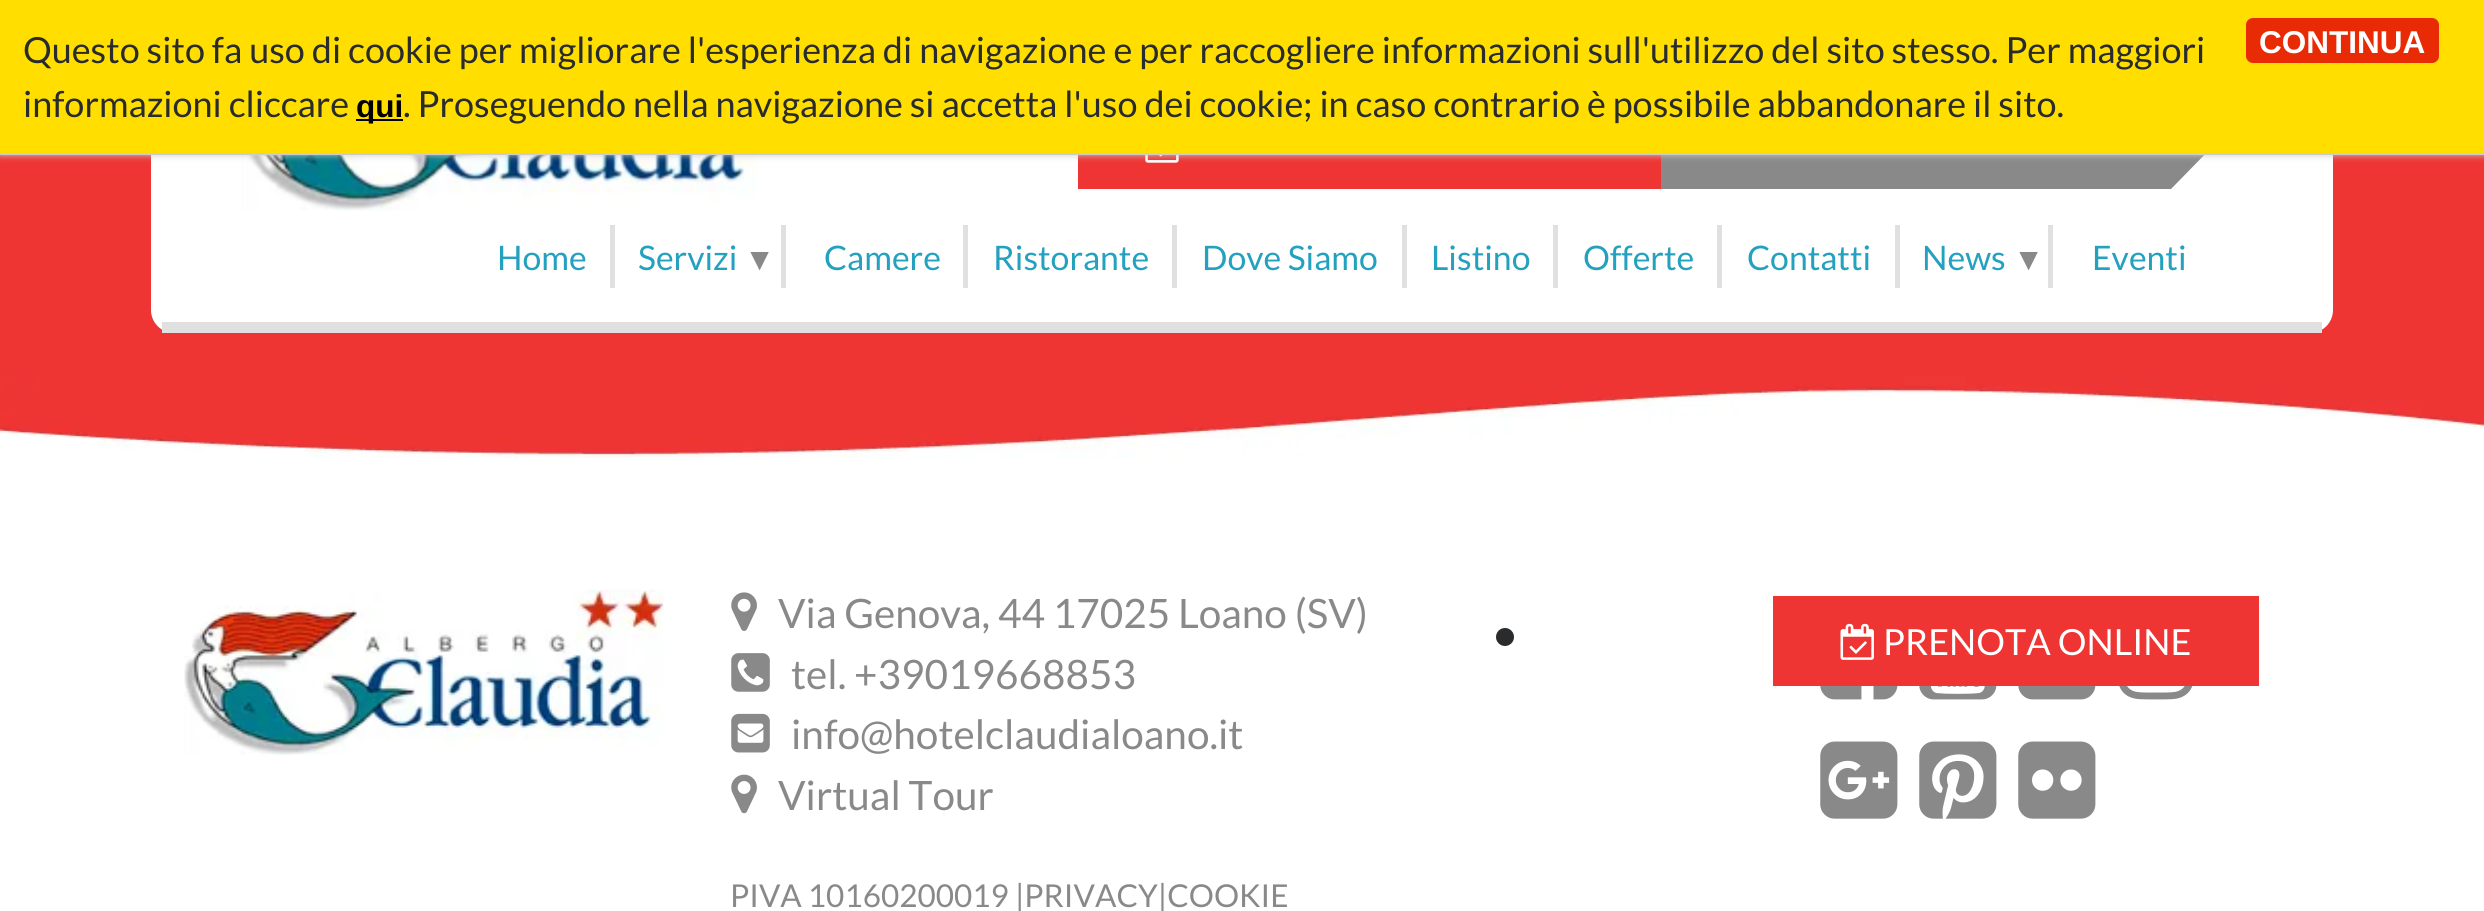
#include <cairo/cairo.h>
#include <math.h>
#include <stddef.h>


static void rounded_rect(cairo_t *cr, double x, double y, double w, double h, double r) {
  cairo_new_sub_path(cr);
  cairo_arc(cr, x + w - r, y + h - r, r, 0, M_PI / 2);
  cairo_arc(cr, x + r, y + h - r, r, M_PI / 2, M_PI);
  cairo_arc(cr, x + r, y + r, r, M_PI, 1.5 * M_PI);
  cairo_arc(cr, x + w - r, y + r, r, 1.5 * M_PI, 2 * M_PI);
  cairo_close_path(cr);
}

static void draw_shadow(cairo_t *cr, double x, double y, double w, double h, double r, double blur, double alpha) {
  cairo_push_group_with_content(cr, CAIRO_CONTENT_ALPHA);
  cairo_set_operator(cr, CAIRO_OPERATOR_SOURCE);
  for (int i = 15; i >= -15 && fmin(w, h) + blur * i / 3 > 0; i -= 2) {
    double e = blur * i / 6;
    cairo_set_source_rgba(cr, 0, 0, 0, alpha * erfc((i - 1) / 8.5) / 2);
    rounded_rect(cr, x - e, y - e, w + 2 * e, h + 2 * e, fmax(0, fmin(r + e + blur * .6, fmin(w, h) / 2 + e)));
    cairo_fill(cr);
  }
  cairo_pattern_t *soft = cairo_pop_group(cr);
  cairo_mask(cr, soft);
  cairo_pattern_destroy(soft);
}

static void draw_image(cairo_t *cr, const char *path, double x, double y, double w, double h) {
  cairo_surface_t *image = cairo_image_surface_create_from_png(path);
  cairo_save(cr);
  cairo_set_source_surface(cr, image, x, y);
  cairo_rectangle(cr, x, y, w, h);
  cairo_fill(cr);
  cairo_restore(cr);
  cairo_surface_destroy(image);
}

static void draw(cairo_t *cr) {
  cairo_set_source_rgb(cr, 1, 1, 1);
  cairo_paint(cr);
  cairo_set_source_rgb(cr, 238 / 255.0, 53 / 255.0, 51 / 255.0);
  cairo_rectangle(cr, 0, 155, 2484, 221);
  cairo_fill(cr);
  cairo_set_source_rgb(cr, 1, 1, 1);
  rounded_rect(cr, 151, 0, 2182, 333, 23);
  cairo_fill(cr);
  draw_image(cr, "images/1.png", 241, 155, 518, 56);
  cairo_set_source_rgb(cr, 238 / 255.0, 53 / 255.0, 51 / 255.0);
  cairo_rectangle(cr, 1078, 155, 583, 34);
  cairo_fill(cr);
  draw_image(cr, "images/2.png", 1145, 155, 34, 8);
  cairo_set_source_rgb(cr, 137 / 255.0, 137 / 255.0, 137 / 255.0);
  cairo_rectangle(cr, 1661, 155, 510, 34);
  cairo_fill(cr);
  cairo_new_path(cr);
  cairo_move_to(cr, 2171, 100);
  cairo_line_to(cr, 2215, 144);
  cairo_line_to(cr, 2171, 189);
  cairo_close_path(cr);
  cairo_fill(cr);
  cairo_set_source_rgb(cr, 204 / 255.0, 204 / 255.0, 204 / 255.0);
  draw_shadow(cr, 0, 0, 2484, 155, 0, 3.5, 1);
  cairo_set_source_rgb(cr, 1, 222 / 255.0, 0);
  cairo_rectangle(cr, 0, 0, 2484, 153);
  cairo_fill(cr);
  cairo_set_source_rgb(cr, 204 / 255.0, 204 / 255.0, 204 / 255.0);
  cairo_rectangle(cr, 0, 153, 2484, 2);
  cairo_fill(cr);
  cairo_set_source_rgb(cr, 0, 0, 0);
  cairo_rectangle(cr, 356, 119, 47, 2);
  cairo_fill(cr);
  cairo_set_source_rgb(cr, 232 / 255.0, 43 / 255.0, 5 / 255.0);
  rounded_rect(cr, 2246, 18, 193, 45, 7);
  cairo_fill(cr);
  cairo_set_source_rgb(cr, 224 / 255.0, 224 / 255.0, 224 / 255.0);
  cairo_rectangle(cr, 162, 322, 2160, 11);
  cairo_fill(cr);
  cairo_rectangle(cr, 610, 225, 5, 63);
  cairo_fill(cr);
  cairo_rectangle(cr, 781, 225, 5, 63);
  cairo_fill(cr);
  cairo_rectangle(cr, 963, 225, 5, 63);
  cairo_fill(cr);
  cairo_rectangle(cr, 1172, 225, 5, 63);
  cairo_fill(cr);
  cairo_rectangle(cr, 1402, 225, 5, 63);
  cairo_fill(cr);
  cairo_rectangle(cr, 1553, 225, 5, 63);
  cairo_fill(cr);
  cairo_rectangle(cr, 1717, 225, 5, 63);
  cairo_fill(cr);
  cairo_rectangle(cr, 1895, 225, 5, 63);
  cairo_fill(cr);
  cairo_rectangle(cr, 2048, 225, 5, 63);
  cairo_fill(cr);
  draw_image(cr, "images/3.png", 0, 376, 2484, 82);
  draw_image(cr, "images/4.png", 184, 589, 480, 166);
  draw_image(cr, "images/5.png", 731, 592, 26, 39);
  draw_image(cr, "images/6.png", 731, 653, 39, 39);
  draw_image(cr, "images/7.png", 731, 713, 39, 40);
  draw_image(cr, "images/8.png", 731, 774, 26, 40);
  cairo_set_source_rgb(cr, 41 / 255.0, 43 / 255.0, 44 / 255.0);
  cairo_arc(cr, 1505, 637, 9, 0, 2 * M_PI);
  cairo_fill(cr);
  draw_image(cr, "images/9.png", 1820, 686, 78, 14);
  draw_image(cr, "images/10.png", 1919, 686, 78, 14);
  draw_image(cr, "images/11.png", 2018, 686, 78, 14);
  draw_image(cr, "images/12.png", 2119, 686, 74, 14);
  draw_image(cr, "images/13.png", 1820, 741, 78, 78);
  draw_image(cr, "images/14.png", 1919, 741, 78, 78);
  draw_image(cr, "images/15.png", 2018, 741, 78, 78);
  cairo_set_source_rgb(cr, 238 / 255.0, 53 / 255.0, 51 / 255.0);
  cairo_rectangle(cr, 1773, 596, 486, 90);
  cairo_fill(cr);
  draw_image(cr, "images/16.png", 1840, 623, 34, 37);
  cairo_select_font_face(cr, "Lato", CAIRO_FONT_SLANT_NORMAL, CAIRO_FONT_WEIGHT_NORMAL);
  cairo_set_font_size(cr, 36);
  cairo_set_source_rgb(cr, 41 / 255.0, 43 / 255.0, 44 / 255.0);
  cairo_move_to(cr, 23, 63);
  cairo_show_text(cr, "Questo sito fa uso di cookie per migliorare l'esperienza di navigazione e per raccogliere informazioni sull'utilizzo del sito stesso. Per maggiori");
  cairo_move_to(cr, 23, 117);
  cairo_show_text(cr, "informazioni cliccare");
  cairo_select_font_face(cr, "Liberation Sans", CAIRO_FONT_SLANT_NORMAL, CAIRO_FONT_WEIGHT_BOLD);
  cairo_set_font_size(cr, 31.5);
  cairo_set_source_rgb(cr, 0, 0, 0);
  cairo_move_to(cr, 356, 117);
  cairo_show_text(cr, "qui");
  cairo_select_font_face(cr, "Lato", CAIRO_FONT_SLANT_NORMAL, CAIRO_FONT_WEIGHT_NORMAL);
  cairo_set_font_size(cr, 36);
  cairo_set_source_rgb(cr, 41 / 255.0, 43 / 255.0, 44 / 255.0);
  cairo_move_to(cr, 403, 117);
  cairo_show_text(cr, ". Proseguendo nella navigazione si accetta l'uso dei cookie; in caso contrario è possibile abbandonare il sito.");
  cairo_select_font_face(cr, "Liberation Sans", CAIRO_FONT_SLANT_NORMAL, CAIRO_FONT_WEIGHT_BOLD);
  cairo_set_font_size(cr, 31.5);
  cairo_set_source_rgb(cr, 1, 1, 1);
  cairo_move_to(cr, 2259, 53);
  cairo_show_text(cr, "CONTINUA");
  cairo_select_font_face(cr, "Lato", CAIRO_FONT_SLANT_NORMAL, CAIRO_FONT_WEIGHT_NORMAL);
  cairo_set_font_size(cr, 33.75);
  cairo_set_source_rgb(cr, 35 / 255.0, 161 / 255.0, 191 / 255.0);
  cairo_move_to(cr, 497, 270);
  cairo_show_text(cr, "Home");
  cairo_move_to(cr, 638, 270);
  cairo_show_text(cr, "Servizi");
  cairo_select_font_face(cr, "Liberation Sans", CAIRO_FONT_SLANT_NORMAL, CAIRO_FONT_WEIGHT_NORMAL);
  cairo_set_font_size(cr, 31.5);
  cairo_set_source_rgb(cr, 137 / 255.0, 137 / 255.0, 137 / 255.0);
  cairo_move_to(cr, 744, 270);
  cairo_show_text(cr, "▼");
  cairo_select_font_face(cr, "Lato", CAIRO_FONT_SLANT_NORMAL, CAIRO_FONT_WEIGHT_NORMAL);
  cairo_set_font_size(cr, 33.75);
  cairo_set_source_rgb(cr, 35 / 255.0, 161 / 255.0, 191 / 255.0);
  cairo_move_to(cr, 824, 270);
  cairo_show_text(cr, "Camere");
  cairo_move_to(cr, 993, 270);
  cairo_show_text(cr, "Ristorante");
  cairo_move_to(cr, 1202, 270);
  cairo_show_text(cr, "Dove Siamo");
  cairo_move_to(cr, 1431, 270);
  cairo_show_text(cr, "Listino");
  cairo_move_to(cr, 1583, 270);
  cairo_show_text(cr, "Offerte");
  cairo_move_to(cr, 1747, 270);
  cairo_show_text(cr, "Contatti");
  cairo_move_to(cr, 1922, 270);
  cairo_show_text(cr, "News");
  cairo_select_font_face(cr, "Liberation Sans", CAIRO_FONT_SLANT_NORMAL, CAIRO_FONT_WEIGHT_NORMAL);
  cairo_set_font_size(cr, 31.5);
  cairo_set_source_rgb(cr, 137 / 255.0, 137 / 255.0, 137 / 255.0);
  cairo_move_to(cr, 2013, 270);
  cairo_show_text(cr, "▼");
  cairo_select_font_face(cr, "Lato", CAIRO_FONT_SLANT_NORMAL, CAIRO_FONT_WEIGHT_NORMAL);
  cairo_set_font_size(cr, 33.75);
  cairo_set_source_rgb(cr, 35 / 255.0, 161 / 255.0, 191 / 255.0);
  cairo_move_to(cr, 2092, 270);
  cairo_show_text(cr, "Eventi");
  cairo_set_font_size(cr, 40.5);
  cairo_set_source_rgb(cr, 137 / 255.0, 137 / 255.0, 137 / 255.0);
  cairo_move_to(cr, 778, 628);
  cairo_show_text(cr, "Via Genova, 44 17025 Loano (SV)");
  cairo_move_to(cr, 791, 689);
  cairo_show_text(cr, "tel. +39019668853");
  cairo_move_to(cr, 791, 749);
  cairo_show_text(cr, "info@hotelclaudialoano.it");
  cairo_move_to(cr, 778, 810);
  cairo_show_text(cr, "Virtual Tour");
  cairo_set_font_size(cr, 31.5);
  cairo_move_to(cr, 730, 907);
  cairo_show_text(cr, "PIVA 10160200019 |PRIVACY|COOKIE");
  cairo_set_font_size(cr, 36);
  cairo_set_source_rgb(cr, 1, 1, 1);
  cairo_move_to(cr, 1883, 655);
  cairo_show_text(cr, "PRENOTA ONLINE");
}

int main(void) {
  cairo_surface_t *surface = cairo_image_surface_create(CAIRO_FORMAT_RGB24, 2484, 911);
  cairo_t *cr = cairo_create(surface);
  cairo_font_options_t *options = cairo_font_options_create();
  cairo_font_options_set_hint_metrics(options, CAIRO_HINT_METRICS_OFF);
  cairo_font_options_set_hint_style(options, CAIRO_HINT_STYLE_NONE);
  cairo_set_font_options(cr, options);
  cairo_set_miter_limit(cr, 4);
  draw(cr);
  cairo_surface_write_to_png(surface, "out.png");
  cairo_font_options_destroy(options);
  cairo_destroy(cr);
  cairo_surface_destroy(surface);
  return 0;
}
